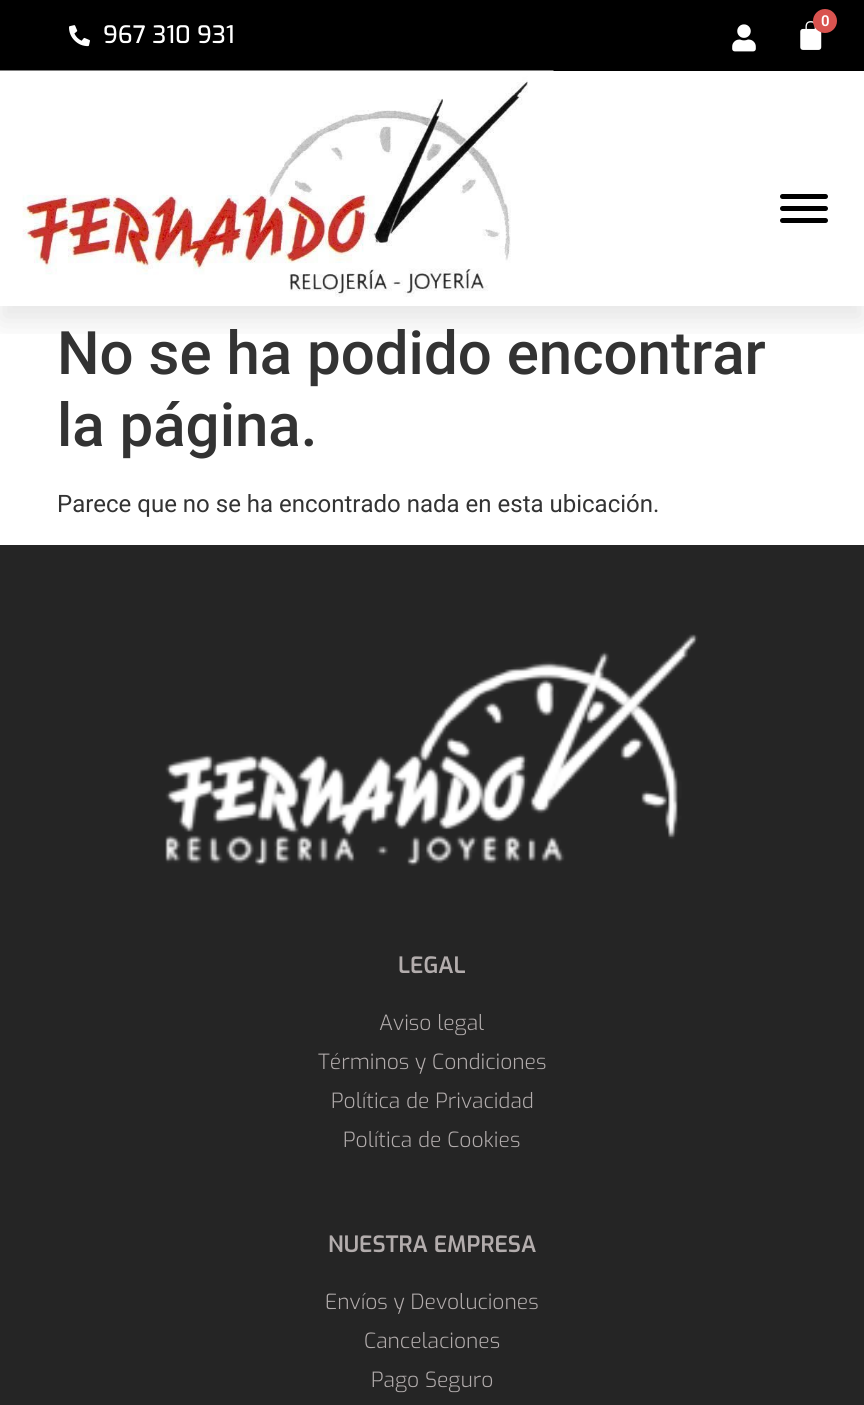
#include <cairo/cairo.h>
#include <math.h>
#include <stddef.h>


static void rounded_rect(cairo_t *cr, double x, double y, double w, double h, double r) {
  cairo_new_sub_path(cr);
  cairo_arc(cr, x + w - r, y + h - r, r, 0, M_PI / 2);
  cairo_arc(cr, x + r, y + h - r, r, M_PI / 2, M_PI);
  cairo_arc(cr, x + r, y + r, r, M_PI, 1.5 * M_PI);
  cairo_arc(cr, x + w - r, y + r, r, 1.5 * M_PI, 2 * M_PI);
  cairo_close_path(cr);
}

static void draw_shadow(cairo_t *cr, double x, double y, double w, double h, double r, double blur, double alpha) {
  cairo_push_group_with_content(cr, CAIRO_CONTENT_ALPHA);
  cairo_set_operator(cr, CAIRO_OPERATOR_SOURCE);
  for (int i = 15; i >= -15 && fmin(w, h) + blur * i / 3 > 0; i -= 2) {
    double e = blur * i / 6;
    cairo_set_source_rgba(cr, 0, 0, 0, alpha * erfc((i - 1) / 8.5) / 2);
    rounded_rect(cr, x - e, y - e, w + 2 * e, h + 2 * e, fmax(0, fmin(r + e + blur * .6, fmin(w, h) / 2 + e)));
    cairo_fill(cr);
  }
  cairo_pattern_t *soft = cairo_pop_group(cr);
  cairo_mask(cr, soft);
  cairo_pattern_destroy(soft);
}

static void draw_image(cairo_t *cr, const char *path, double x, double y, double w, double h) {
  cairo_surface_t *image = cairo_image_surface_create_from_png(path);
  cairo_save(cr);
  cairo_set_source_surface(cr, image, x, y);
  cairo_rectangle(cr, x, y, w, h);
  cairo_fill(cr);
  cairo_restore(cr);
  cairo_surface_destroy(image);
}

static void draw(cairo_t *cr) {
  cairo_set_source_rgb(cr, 1, 1, 1);
  cairo_paint(cr);
  cairo_set_source_rgb(cr, 0, 0, 0);
  cairo_rectangle(cr, 0, 0, 864, 71);
  cairo_fill(cr);
  draw_image(cr, "images/1.png", 800, 21, 22, 29);
  cairo_set_source_rgb(cr, 217 / 255.0, 83 / 255.0, 79 / 255.0);
  cairo_arc(cr, 825, 21, 12, 0, 2 * M_PI);
  cairo_fill(cr);
  draw_image(cr, "images/2.png", 732, 24, 24, 28);
  draw_image(cr, "images/3.png", 69, 25, 21, 22);
  cairo_save(cr);
  cairo_rectangle(cr, 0, 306, 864, 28);
  cairo_clip(cr);
  cairo_set_source_rgb(cr, 0, 0, 0);
  draw_shadow(cr, 0, 86, 864, 235, 0, 15, 0.1);
  cairo_restore(cr);
  draw_image(cr, "images/4.png", 0, 70, 554, 227);
  cairo_set_source_rgb(cr, 0, 0, 0);
  rounded_rect(cr, 780, 194, 48, 5, 2.5);
  cairo_fill(cr);
  rounded_rect(cr, 780, 206, 48, 5, 2.5);
  cairo_fill(cr);
  rounded_rect(cr, 780, 218, 48, 5, 2.5);
  cairo_fill(cr);
  cairo_set_source_rgb(cr, 37 / 255.0, 37 / 255.0, 37 / 255.0);
  cairo_rectangle(cr, 0, 545, 864, 860);
  cairo_fill(cr);
  draw_image(cr, "images/5.png", 165, 634, 533, 232);
  cairo_select_font_face(cr, "Roboto SemiBold", CAIRO_FONT_SLANT_NORMAL, CAIRO_FONT_WEIGHT_NORMAL);
  cairo_set_font_size(cr, 15);
  cairo_set_source_rgb(cr, 1, 1, 1);
  cairo_move_to(cr, 821, 26);
  cairo_show_text(cr, "0");
  cairo_select_font_face(cr, "Exo Medium", CAIRO_FONT_SLANT_NORMAL, CAIRO_FONT_WEIGHT_NORMAL);
  cairo_set_font_size(cr, 24);
  cairo_move_to(cr, 103, 43);
  cairo_show_text(cr, "967 310 931");
  cairo_select_font_face(cr, "Roboto Medium", CAIRO_FONT_SLANT_NORMAL, CAIRO_FONT_WEIGHT_NORMAL);
  cairo_set_font_size(cr, 60);
  cairo_set_source_rgb(cr, 51 / 255.0, 51 / 255.0, 51 / 255.0);
  cairo_move_to(cr, 57, 374);
  cairo_show_text(cr, "No se ha podido encontrar");
  cairo_move_to(cr, 57, 446);
  cairo_show_text(cr, "la página.");
  cairo_select_font_face(cr, "Roboto", CAIRO_FONT_SLANT_NORMAL, CAIRO_FONT_WEIGHT_NORMAL);
  cairo_set_font_size(cr, 24);
  cairo_move_to(cr, 57, 512);
  cairo_show_text(cr, "Parece que no se ha encontrado nada en esta ubicación.");
  cairo_select_font_face(cr, "Exo SemiBold", CAIRO_FONT_SLANT_NORMAL, CAIRO_FONT_WEIGHT_NORMAL);
  cairo_set_font_size(cr, 22.5);
  cairo_set_source_rgb(cr, 179 / 255.0, 173 / 255.0, 173 / 255.0);
  cairo_move_to(cr, 398, 973);
  cairo_show_text(cr, "LEGAL");
  cairo_select_font_face(cr, "Exo Light", CAIRO_FONT_SLANT_NORMAL, CAIRO_FONT_WEIGHT_NORMAL);
  cairo_set_font_size(cr, 21);
  cairo_move_to(cr, 379, 1030);
  cairo_show_text(cr, "Aviso legal");
  cairo_move_to(cr, 318, 1069);
  cairo_show_text(cr, "Términos y Condiciones");
  cairo_move_to(cr, 331, 1108);
  cairo_show_text(cr, "Política de Privacidad");
  cairo_move_to(cr, 343, 1147);
  cairo_show_text(cr, "Política de Cookies");
  cairo_select_font_face(cr, "Exo SemiBold", CAIRO_FONT_SLANT_NORMAL, CAIRO_FONT_WEIGHT_NORMAL);
  cairo_set_font_size(cr, 22.5);
  cairo_move_to(cr, 328, 1252);
  cairo_show_text(cr, "NUESTRA EMPRESA");
  cairo_select_font_face(cr, "Exo Light", CAIRO_FONT_SLANT_NORMAL, CAIRO_FONT_WEIGHT_NORMAL);
  cairo_set_font_size(cr, 21);
  cairo_move_to(cr, 325, 1309);
  cairo_show_text(cr, "Envíos y Devoluciones");
  cairo_move_to(cr, 364, 1348);
  cairo_show_text(cr, "Cancelaciones");
  cairo_move_to(cr, 371, 1387);
  cairo_show_text(cr, "Pago Seguro");
}

int main(void) {
  cairo_surface_t *surface = cairo_image_surface_create(CAIRO_FORMAT_RGB24, 864, 1405);
  cairo_t *cr = cairo_create(surface);
  cairo_font_options_t *options = cairo_font_options_create();
  cairo_font_options_set_hint_metrics(options, CAIRO_HINT_METRICS_OFF);
  cairo_font_options_set_hint_style(options, CAIRO_HINT_STYLE_NONE);
  cairo_set_font_options(cr, options);
  cairo_set_miter_limit(cr, 4);
  draw(cr);
  cairo_surface_write_to_png(surface, "out.png");
  cairo_font_options_destroy(options);
  cairo_destroy(cr);
  cairo_surface_destroy(surface);
  return 0;
}
